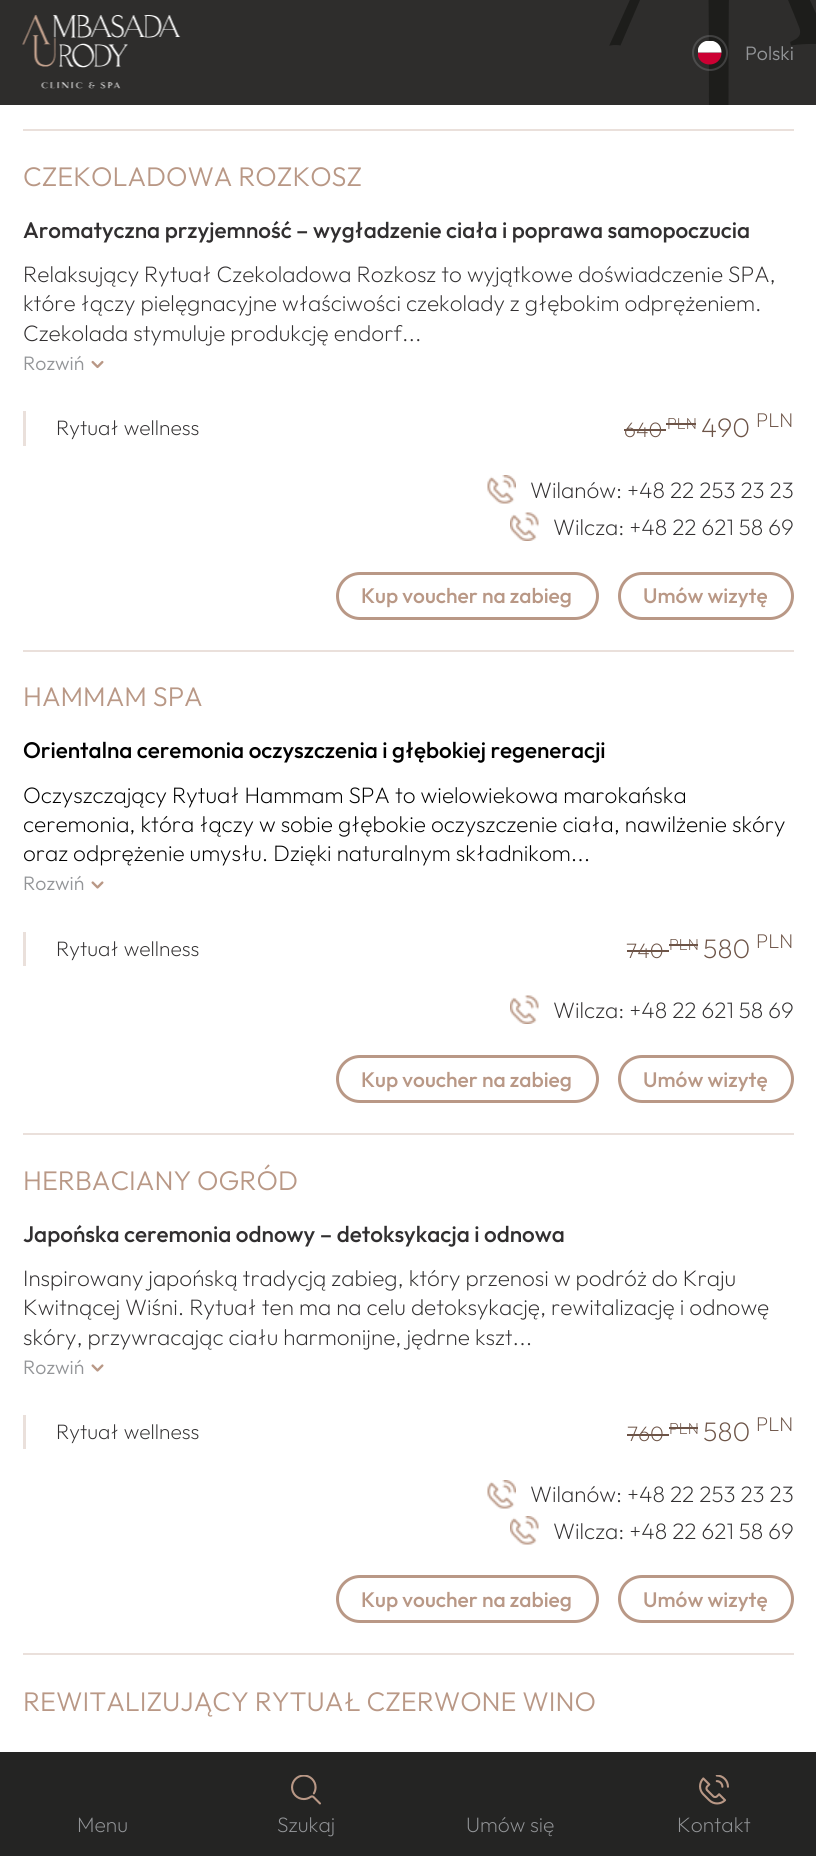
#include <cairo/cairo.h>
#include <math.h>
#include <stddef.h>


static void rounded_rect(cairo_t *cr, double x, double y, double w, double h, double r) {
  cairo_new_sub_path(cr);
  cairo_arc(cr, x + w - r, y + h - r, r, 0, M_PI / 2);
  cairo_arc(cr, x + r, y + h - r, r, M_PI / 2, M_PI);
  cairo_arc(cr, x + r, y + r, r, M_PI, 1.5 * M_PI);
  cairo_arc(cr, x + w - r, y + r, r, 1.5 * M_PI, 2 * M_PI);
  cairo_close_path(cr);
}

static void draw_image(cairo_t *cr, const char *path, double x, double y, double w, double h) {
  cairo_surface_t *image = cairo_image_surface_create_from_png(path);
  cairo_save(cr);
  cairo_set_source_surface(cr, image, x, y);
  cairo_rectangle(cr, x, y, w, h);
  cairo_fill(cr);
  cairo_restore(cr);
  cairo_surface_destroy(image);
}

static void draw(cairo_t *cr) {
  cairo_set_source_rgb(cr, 1, 1, 1);
  cairo_paint(cr);
  cairo_set_source_rgb(cr, 46 / 255.0, 45 / 255.0, 44 / 255.0);
  cairo_rectangle(cr, 0, 0, 816, 105);
  cairo_fill(cr);
  draw_image(cr, "images/1.png", 609, 0, 207, 105);
  draw_image(cr, "images/2.png", 22, 15, 159, 74);
  cairo_save(cr);
  cairo_rectangle(cr, 698, 41, 24, 24);
  cairo_clip(cr);
  cairo_set_source_rgb(cr, 204 / 255.0, 0, 51 / 255.0);
  cairo_new_path(cr);
  cairo_move_to(cr, 721.5, 52.5);
  cairo_line_to(cr, 697.5, 52.5);
  cairo_curve_to(cr, 697.5, 68.5, 721.5, 68.5, 721.5, 52.5);
  cairo_close_path(cr);
  cairo_fill(cr);
  cairo_set_source_rgb(cr, 1, 1, 1);
  cairo_new_path(cr);
  cairo_move_to(cr, 697.5, 52.5);
  cairo_line_to(cr, 721.5, 52.5);
  cairo_curve_to(cr, 721.5, 36.5, 697.5, 36.5, 697.5, 52.5);
  cairo_close_path(cr);
  cairo_fill(cr);
  cairo_restore(cr);
  cairo_arc(cr, 710, 53, 17, 0, 2 * M_PI);
  cairo_set_source_rgba(cr, 147 / 255.0, 149 / 255.0, 152 / 255.0, 0.3);
  cairo_stroke(cr);
  cairo_set_source_rgb(cr, 234 / 255.0, 224 / 255.0, 219 / 255.0);
  cairo_rectangle(cr, 23, 129, 771, 2);
  cairo_fill(cr);
  cairo_rectangle(cr, 23, 650, 771, 2);
  cairo_fill(cr);
  draw_image(cr, "images/3.png", 91, 360, 13, 9);
  cairo_rectangle(cr, 23, 411, 3, 35);
  cairo_fill(cr);
  cairo_set_source_rgb(cr, 109 / 255.0, 84 / 255.0, 71 / 255.0);
  cairo_rectangle(cr, 624, 429, 42, 2);
  cairo_fill(cr);
  cairo_rectangle(cr, 666, 423, 30, 2);
  cairo_fill(cr);
  draw_image(cr, "images/4.png", 487, 475, 29, 29);
  draw_image(cr, "images/5.png", 510, 512, 29, 29);
  rounded_rect(cr, 337.5, 573.5, 260, 45, 22.5);
  cairo_set_source_rgb(cr, 185 / 255.0, 152 / 255.0, 134 / 255.0);
  cairo_set_line_width(cr, 3);
  cairo_stroke(cr);
  rounded_rect(cr, 619.5, 573.5, 173, 45, 22.5);
  cairo_stroke(cr);
  cairo_set_source_rgb(cr, 234 / 255.0, 224 / 255.0, 219 / 255.0);
  cairo_rectangle(cr, 23, 1133, 771, 2);
  cairo_fill(cr);
  draw_image(cr, "images/6.png", 91, 881, 13, 8);
  cairo_rectangle(cr, 23, 932, 3, 34);
  cairo_fill(cr);
  cairo_set_source_rgb(cr, 109 / 255.0, 84 / 255.0, 71 / 255.0);
  cairo_rectangle(cr, 627, 950, 42, 2);
  cairo_fill(cr);
  cairo_rectangle(cr, 669, 944, 29, 2);
  cairo_fill(cr);
  draw_image(cr, "images/5.png", 510, 995, 29, 29);
  rounded_rect(cr, 337.5, 1056.5, 260, 45, 22.5);
  cairo_set_source_rgb(cr, 185 / 255.0, 152 / 255.0, 134 / 255.0);
  cairo_stroke(cr);
  rounded_rect(cr, 619.5, 1056.5, 173, 45, 22.5);
  cairo_stroke(cr);
  cairo_set_source_rgb(cr, 234 / 255.0, 224 / 255.0, 219 / 255.0);
  cairo_rectangle(cr, 23, 1653, 771, 2);
  cairo_fill(cr);
  draw_image(cr, "images/6.png", 91, 1364, 13, 8);
  cairo_rectangle(cr, 23, 1415, 3, 34);
  cairo_fill(cr);
  cairo_set_source_rgb(cr, 109 / 255.0, 84 / 255.0, 71 / 255.0);
  cairo_rectangle(cr, 627, 1434, 42, 2);
  cairo_fill(cr);
  cairo_rectangle(cr, 669, 1427, 29, 2);
  cairo_fill(cr);
  draw_image(cr, "images/4.png", 487, 1480, 29, 29);
  draw_image(cr, "images/7.png", 510, 1516, 29, 29);
  rounded_rect(cr, 337.5, 1576.5, 260, 45, 22.5);
  cairo_set_source_rgb(cr, 185 / 255.0, 152 / 255.0, 134 / 255.0);
  cairo_stroke(cr);
  rounded_rect(cr, 619.5, 1576.5, 173, 45, 22.5);
  cairo_stroke(cr);
  cairo_set_source_rgb(cr, 36 / 255.0, 36 / 255.0, 35 / 255.0);
  cairo_rectangle(cr, 0, 1752, 816, 104);
  cairo_fill(cr);
  draw_image(cr, "images/8.png", 291, 1775, 30, 30);
  draw_image(cr, "images/9.png", 699, 1775, 30, 30);
  cairo_select_font_face(cr, "Outfit Light", CAIRO_FONT_SLANT_NORMAL, CAIRO_FONT_WEIGHT_NORMAL);
  cairo_set_font_size(cr, 19.5);
  cairo_set_source_rgb(cr, 147 / 255.0, 149 / 255.0, 152 / 255.0);
  cairo_move_to(cr, 745, 60);
  cairo_show_text(cr, "Polski");
  cairo_set_font_size(cr, 27);
  cairo_set_source_rgb(cr, 185 / 255.0, 152 / 255.0, 134 / 255.0);
  cairo_move_to(cr, 23, 186);
  cairo_show_text(cr, "CZEKOLADOWA ROZKOSZ");
  cairo_select_font_face(cr, "Outfit Medium", CAIRO_FONT_SLANT_NORMAL, CAIRO_FONT_WEIGHT_NORMAL);
  cairo_set_font_size(cr, 22.5);
  cairo_set_source_rgb(cr, 49 / 255.0, 47 / 255.0, 48 / 255.0);
  cairo_move_to(cr, 23, 238);
  cairo_show_text(cr, "Aromatyczna przyjemność – wygładzenie ciała i poprawa samopoczucia");
  cairo_select_font_face(cr, "Outfit ExtraLight", CAIRO_FONT_SLANT_NORMAL, CAIRO_FONT_WEIGHT_NORMAL);
  cairo_move_to(cr, 23, 282);
  cairo_show_text(cr, "Relaksujący Rytuał Czekoladowa Rozkosz to wyjątkowe doświadczenie SPA,");
  cairo_move_to(cr, 23, 311);
  cairo_show_text(cr, "które łączy pielęgnacyjne właściwości czekolady z głębokim odprężeniem.");
  cairo_move_to(cr, 23, 341);
  cairo_show_text(cr, "Czekolada stymuluje produkcję endorf...");
  cairo_select_font_face(cr, "Outfit Light", CAIRO_FONT_SLANT_NORMAL, CAIRO_FONT_WEIGHT_NORMAL);
  cairo_set_font_size(cr, 19.5);
  cairo_set_source_rgb(cr, 147 / 255.0, 149 / 255.0, 152 / 255.0);
  cairo_move_to(cr, 23, 370);
  cairo_show_text(cr, "Rozwiń");
  cairo_select_font_face(cr, "Outfit ExtraLight", CAIRO_FONT_SLANT_NORMAL, CAIRO_FONT_WEIGHT_NORMAL);
  cairo_set_font_size(cr, 21);
  cairo_set_source_rgb(cr, 49 / 255.0, 47 / 255.0, 48 / 255.0);
  cairo_move_to(cr, 56, 435);
  cairo_show_text(cr, "Rytuał wellness");
  cairo_set_source_rgb(cr, 109 / 255.0, 84 / 255.0, 71 / 255.0);
  cairo_move_to(cr, 624, 437);
  cairo_show_text(cr, "640");
  cairo_set_font_size(cr, 16);
  cairo_move_to(cr, 667, 429);
  cairo_show_text(cr, "PLN");
  cairo_set_font_size(cr, 27);
  cairo_move_to(cr, 701, 437);
  cairo_show_text(cr, "490");
  cairo_set_font_size(cr, 20);
  cairo_move_to(cr, 756, 427);
  cairo_show_text(cr, "PLN");
  cairo_set_font_size(cr, 22.5);
  cairo_set_source_rgb(cr, 49 / 255.0, 47 / 255.0, 48 / 255.0);
  cairo_move_to(cr, 530, 498);
  cairo_show_text(cr, "Wilanów: +48 22 253 23 23");
  cairo_move_to(cr, 553, 535);
  cairo_show_text(cr, "Wilcza: +48 22 621 58 69");
  cairo_select_font_face(cr, "Outfit Medium", CAIRO_FONT_SLANT_NORMAL, CAIRO_FONT_WEIGHT_NORMAL);
  cairo_set_font_size(cr, 21);
  cairo_set_source_rgb(cr, 185 / 255.0, 152 / 255.0, 134 / 255.0);
  cairo_move_to(cr, 361, 603);
  cairo_show_text(cr, "Kup voucher na zabieg");
  cairo_move_to(cr, 643, 603);
  cairo_show_text(cr, "Umów wizytę");
  cairo_select_font_face(cr, "Outfit Light", CAIRO_FONT_SLANT_NORMAL, CAIRO_FONT_WEIGHT_NORMAL);
  cairo_set_font_size(cr, 27);
  cairo_move_to(cr, 23, 706);
  cairo_show_text(cr, "HAMMAM SPA");
  cairo_select_font_face(cr, "Outfit Medium", CAIRO_FONT_SLANT_NORMAL, CAIRO_FONT_WEIGHT_NORMAL);
  cairo_set_font_size(cr, 22.5);
  cairo_set_source_rgb(cr, 0, 0, 0);
  cairo_move_to(cr, 23, 758);
  cairo_show_text(cr, "Orientalna ceremonia oczyszczenia i głębokiej regeneracji");
  cairo_select_font_face(cr, "Outfit ExtraLight", CAIRO_FONT_SLANT_NORMAL, CAIRO_FONT_WEIGHT_NORMAL);
  cairo_move_to(cr, 23, 803);
  cairo_show_text(cr, "Oczyszczający Rytuał Hammam SPA to wielowiekowa marokańska");
  cairo_move_to(cr, 23, 832);
  cairo_show_text(cr, "ceremonia, która łączy w sobie głębokie oczyszczenie ciała, nawilżenie skóry");
  cairo_move_to(cr, 23, 861);
  cairo_show_text(cr, "oraz odprężenie umysłu. Dzięki naturalnym składnikom...");
  cairo_select_font_face(cr, "Outfit Light", CAIRO_FONT_SLANT_NORMAL, CAIRO_FONT_WEIGHT_NORMAL);
  cairo_set_font_size(cr, 19.5);
  cairo_set_source_rgb(cr, 147 / 255.0, 149 / 255.0, 152 / 255.0);
  cairo_move_to(cr, 23, 890);
  cairo_show_text(cr, "Rozwiń");
  cairo_select_font_face(cr, "Outfit ExtraLight", CAIRO_FONT_SLANT_NORMAL, CAIRO_FONT_WEIGHT_NORMAL);
  cairo_set_font_size(cr, 21);
  cairo_set_source_rgb(cr, 49 / 255.0, 47 / 255.0, 48 / 255.0);
  cairo_move_to(cr, 56, 956);
  cairo_show_text(cr, "Rytuał wellness");
  cairo_set_source_rgb(cr, 109 / 255.0, 84 / 255.0, 71 / 255.0);
  cairo_move_to(cr, 626, 958);
  cairo_show_text(cr, "740");
  cairo_set_font_size(cr, 16);
  cairo_move_to(cr, 669, 950);
  cairo_show_text(cr, "PLN");
  cairo_set_font_size(cr, 27);
  cairo_move_to(cr, 703, 958);
  cairo_show_text(cr, "580");
  cairo_set_font_size(cr, 20);
  cairo_move_to(cr, 756, 948);
  cairo_show_text(cr, "PLN");
  cairo_set_font_size(cr, 22.5);
  cairo_set_source_rgb(cr, 49 / 255.0, 47 / 255.0, 48 / 255.0);
  cairo_move_to(cr, 553, 1018);
  cairo_show_text(cr, "Wilcza: +48 22 621 58 69");
  cairo_select_font_face(cr, "Outfit Medium", CAIRO_FONT_SLANT_NORMAL, CAIRO_FONT_WEIGHT_NORMAL);
  cairo_set_font_size(cr, 21);
  cairo_set_source_rgb(cr, 185 / 255.0, 152 / 255.0, 134 / 255.0);
  cairo_move_to(cr, 361, 1087);
  cairo_show_text(cr, "Kup voucher na zabieg");
  cairo_move_to(cr, 643, 1087);
  cairo_show_text(cr, "Umów wizytę");
  cairo_select_font_face(cr, "Outfit Light", CAIRO_FONT_SLANT_NORMAL, CAIRO_FONT_WEIGHT_NORMAL);
  cairo_set_font_size(cr, 27);
  cairo_move_to(cr, 23, 1190);
  cairo_show_text(cr, "HERBACIANY OGRÓD");
  cairo_select_font_face(cr, "Outfit Medium", CAIRO_FONT_SLANT_NORMAL, CAIRO_FONT_WEIGHT_NORMAL);
  cairo_set_font_size(cr, 22.5);
  cairo_set_source_rgb(cr, 49 / 255.0, 47 / 255.0, 48 / 255.0);
  cairo_move_to(cr, 23, 1242);
  cairo_show_text(cr, "Japońska ceremonia odnowy – detoksykacja i odnowa");
  cairo_select_font_face(cr, "Outfit ExtraLight", CAIRO_FONT_SLANT_NORMAL, CAIRO_FONT_WEIGHT_NORMAL);
  cairo_move_to(cr, 23, 1286);
  cairo_show_text(cr, "Inspirowany japońską tradycją zabieg, który przenosi w podróż do Kraju");
  cairo_move_to(cr, 23, 1315);
  cairo_show_text(cr, "Kwitnącej Wiśni. Rytuał ten ma na celu detoksykację, rewitalizację i odnowę");
  cairo_move_to(cr, 23, 1345);
  cairo_show_text(cr, "skóry, przywracając ciału harmonijne, jędrne kszt...");
  cairo_select_font_face(cr, "Outfit Light", CAIRO_FONT_SLANT_NORMAL, CAIRO_FONT_WEIGHT_NORMAL);
  cairo_set_font_size(cr, 19.5);
  cairo_set_source_rgb(cr, 147 / 255.0, 149 / 255.0, 152 / 255.0);
  cairo_move_to(cr, 23, 1374);
  cairo_show_text(cr, "Rozwiń");
  cairo_select_font_face(cr, "Outfit ExtraLight", CAIRO_FONT_SLANT_NORMAL, CAIRO_FONT_WEIGHT_NORMAL);
  cairo_set_font_size(cr, 21);
  cairo_set_source_rgb(cr, 49 / 255.0, 47 / 255.0, 48 / 255.0);
  cairo_move_to(cr, 56, 1439);
  cairo_show_text(cr, "Rytuał wellness");
  cairo_set_source_rgb(cr, 109 / 255.0, 84 / 255.0, 71 / 255.0);
  cairo_move_to(cr, 627, 1441);
  cairo_show_text(cr, "760");
  cairo_set_font_size(cr, 16);
  cairo_move_to(cr, 669, 1434);
  cairo_show_text(cr, "PLN");
  cairo_set_font_size(cr, 27);
  cairo_move_to(cr, 703, 1441);
  cairo_show_text(cr, "580");
  cairo_set_font_size(cr, 20);
  cairo_move_to(cr, 756, 1431);
  cairo_show_text(cr, "PLN");
  cairo_set_font_size(cr, 22.5);
  cairo_set_source_rgb(cr, 49 / 255.0, 47 / 255.0, 48 / 255.0);
  cairo_move_to(cr, 530, 1502);
  cairo_show_text(cr, "Wilanów: +48 22 253 23 23");
  cairo_move_to(cr, 553, 1539);
  cairo_show_text(cr, "Wilcza: +48 22 621 58 69");
  cairo_select_font_face(cr, "Outfit Medium", CAIRO_FONT_SLANT_NORMAL, CAIRO_FONT_WEIGHT_NORMAL);
  cairo_set_font_size(cr, 21);
  cairo_set_source_rgb(cr, 185 / 255.0, 152 / 255.0, 134 / 255.0);
  cairo_move_to(cr, 361, 1607);
  cairo_show_text(cr, "Kup voucher na zabieg");
  cairo_move_to(cr, 643, 1607);
  cairo_show_text(cr, "Umów wizytę");
  cairo_select_font_face(cr, "Outfit Light", CAIRO_FONT_SLANT_NORMAL, CAIRO_FONT_WEIGHT_NORMAL);
  cairo_set_font_size(cr, 27);
  cairo_move_to(cr, 23, 1711);
  cairo_show_text(cr, "REWITALIZUJĄCY RYTUAŁ CZERWONE WINO");
  cairo_select_font_face(cr, "Outfit ExtraLight", CAIRO_FONT_SLANT_NORMAL, CAIRO_FONT_WEIGHT_NORMAL);
  cairo_set_font_size(cr, 21);
  cairo_set_source_rgb(cr, 147 / 255.0, 149 / 255.0, 152 / 255.0);
  cairo_move_to(cr, 77, 1832);
  cairo_show_text(cr, "Menu");
  cairo_move_to(cr, 277, 1832);
  cairo_show_text(cr, "Szukaj");
  cairo_move_to(cr, 466, 1832);
  cairo_show_text(cr, "Umów się");
  cairo_move_to(cr, 677, 1832);
  cairo_show_text(cr, "Kontakt");
}

int main(void) {
  cairo_surface_t *surface = cairo_image_surface_create(CAIRO_FORMAT_RGB24, 816, 1856);
  cairo_t *cr = cairo_create(surface);
  cairo_font_options_t *options = cairo_font_options_create();
  cairo_font_options_set_hint_metrics(options, CAIRO_HINT_METRICS_OFF);
  cairo_font_options_set_hint_style(options, CAIRO_HINT_STYLE_NONE);
  cairo_set_font_options(cr, options);
  cairo_set_miter_limit(cr, 4);
  draw(cr);
  cairo_surface_write_to_png(surface, "out.png");
  cairo_font_options_destroy(options);
  cairo_destroy(cr);
  cairo_surface_destroy(surface);
  return 0;
}
